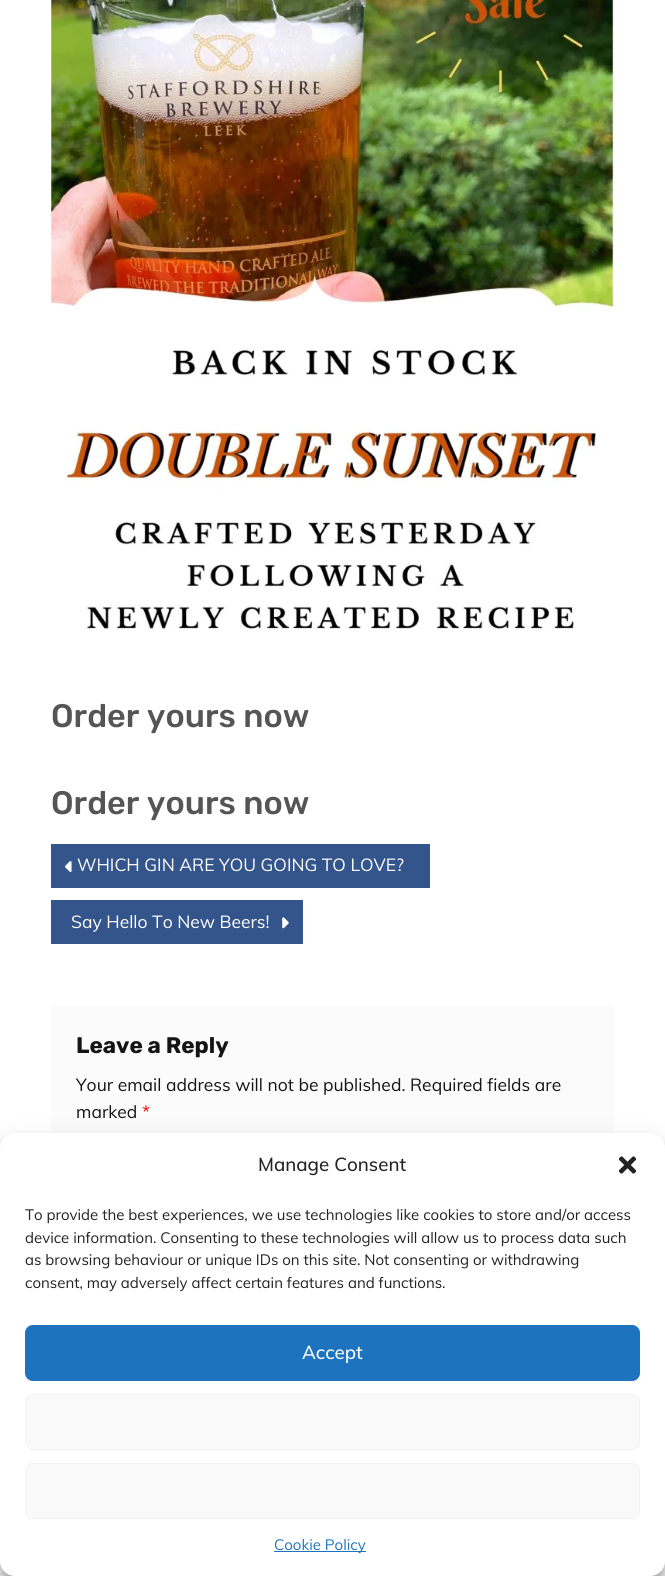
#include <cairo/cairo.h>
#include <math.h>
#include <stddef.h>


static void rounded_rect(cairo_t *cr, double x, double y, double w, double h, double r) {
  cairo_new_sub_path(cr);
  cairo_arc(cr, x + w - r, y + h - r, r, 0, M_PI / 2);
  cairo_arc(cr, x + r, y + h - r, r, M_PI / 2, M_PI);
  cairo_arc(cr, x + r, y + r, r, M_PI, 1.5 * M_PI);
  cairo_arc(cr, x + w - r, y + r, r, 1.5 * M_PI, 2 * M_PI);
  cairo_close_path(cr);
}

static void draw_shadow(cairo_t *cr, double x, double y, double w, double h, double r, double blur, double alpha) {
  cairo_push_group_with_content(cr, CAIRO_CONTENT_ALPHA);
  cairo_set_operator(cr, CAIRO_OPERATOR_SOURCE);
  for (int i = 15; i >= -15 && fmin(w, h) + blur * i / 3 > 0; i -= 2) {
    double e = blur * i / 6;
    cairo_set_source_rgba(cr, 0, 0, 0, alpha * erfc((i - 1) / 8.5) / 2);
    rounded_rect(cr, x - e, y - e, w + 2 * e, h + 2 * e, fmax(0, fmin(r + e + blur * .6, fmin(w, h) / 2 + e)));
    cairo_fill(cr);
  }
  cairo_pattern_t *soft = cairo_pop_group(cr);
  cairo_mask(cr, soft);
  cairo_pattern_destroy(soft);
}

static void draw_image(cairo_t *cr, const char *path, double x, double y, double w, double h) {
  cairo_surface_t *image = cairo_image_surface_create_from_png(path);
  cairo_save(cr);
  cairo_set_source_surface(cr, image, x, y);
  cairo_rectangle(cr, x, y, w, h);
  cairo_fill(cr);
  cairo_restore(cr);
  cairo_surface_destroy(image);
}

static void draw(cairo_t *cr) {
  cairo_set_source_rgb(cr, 1, 1, 1);
  cairo_paint(cr);
  draw_image(cr, "images/1.png", 51, 0, 563, 629);
  cairo_set_source_rgb(cr, 52 / 255.0, 85 / 255.0, 139 / 255.0);
  cairo_rectangle(cr, 51, 844, 379, 44);
  cairo_fill(cr);
  draw_image(cr, "images/2.png", 65, 861, 7, 11);
  cairo_rectangle(cr, 51, 900, 252, 44);
  cairo_fill(cr);
  draw_image(cr, "images/3.png", 282, 917, 7, 12);
  cairo_set_source_rgb(cr, 251 / 255.0, 251 / 255.0, 251 / 255.0);
  cairo_rectangle(cr, 51, 1006, 563, 127);
  cairo_fill(cr);
  cairo_set_source_rgb(cr, 0, 0, 0);
  draw_shadow(cr, 0, 1140, 665, 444, 15, 4, 0.23);
  draw_shadow(cr, 0, 1145, 665, 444, 15, 12.5, 0.19);
  cairo_set_source_rgb(cr, 1, 1, 1);
  rounded_rect(cr, 0, 1133, 665, 443, 15);
  cairo_fill(cr);
  draw_image(cr, "images/4.png", 618, 1156, 19, 18);
  cairo_set_source_rgb(cr, 30 / 255.0, 115 / 255.0, 190 / 255.0);
  rounded_rect(cr, 25.5, 1325.5, 614, 55, 7.5);
  cairo_fill_preserve(cr);
  cairo_set_line_width(cr, 1);
  cairo_stroke(cr);
  cairo_set_source_rgb(cr, 249 / 255.0, 249 / 255.0, 249 / 255.0);
  rounded_rect(cr, 25.5, 1394.5, 614, 55, 7.5);
  cairo_fill_preserve(cr);
  cairo_set_source_rgb(cr, 242 / 255.0, 242 / 255.0, 242 / 255.0);
  cairo_stroke(cr);
  cairo_set_source_rgb(cr, 249 / 255.0, 249 / 255.0, 249 / 255.0);
  rounded_rect(cr, 25.5, 1463.5, 614, 55, 7.5);
  cairo_fill_preserve(cr);
  cairo_set_source_rgb(cr, 242 / 255.0, 242 / 255.0, 242 / 255.0);
  cairo_stroke(cr);
  cairo_set_source_rgb(cr, 30 / 255.0, 115 / 255.0, 190 / 255.0);
  cairo_rectangle(cr, 274, 1551, 92, 1);
  cairo_fill(cr);
  cairo_select_font_face(cr, "Rubik Medium", CAIRO_FONT_SLANT_NORMAL, CAIRO_FONT_WEIGHT_NORMAL);
  cairo_set_font_size(cr, 32.5);
  cairo_set_source_rgb(cr, 85 / 255.0, 85 / 255.0, 85 / 255.0);
  cairo_move_to(cr, 51, 727);
  cairo_show_text(cr, "Order yours now");
  cairo_move_to(cr, 51, 814);
  cairo_show_text(cr, "Order yours now");
  cairo_select_font_face(cr, "Muli", CAIRO_FONT_SLANT_NORMAL, CAIRO_FONT_WEIGHT_NORMAL);
  cairo_set_font_size(cr, 17.5);
  cairo_set_source_rgb(cr, 1, 1, 1);
  cairo_move_to(cr, 77, 871);
  cairo_show_text(cr, "WHICH GIN ARE YOU GOING TO LOVE?");
  cairo_move_to(cr, 71, 928);
  cairo_show_text(cr, "Say Hello To New Beers!");
  cairo_select_font_face(cr, "Rubik", CAIRO_FONT_SLANT_NORMAL, CAIRO_FONT_WEIGHT_BOLD);
  cairo_set_font_size(cr, 22.5);
  cairo_set_source_rgb(cr, 20 / 255.0, 20 / 255.0, 20 / 255.0);
  cairo_move_to(cr, 76, 1053);
  cairo_show_text(cr, "Leave a Reply");
  cairo_select_font_face(cr, "Muli", CAIRO_FONT_SLANT_NORMAL, CAIRO_FONT_WEIGHT_NORMAL);
  cairo_set_font_size(cr, 17.5);
  cairo_move_to(cr, 76, 1091);
  cairo_show_text(cr, "Your email address will not be published. Required fields are");
  cairo_move_to(cr, 76, 1118);
  cairo_show_text(cr, "marked");
  cairo_set_source_rgb(cr, 1, 0, 0);
  cairo_move_to(cr, 142, 1118);
  cairo_show_text(cr, "*");
  cairo_select_font_face(cr, "Muli Medium", CAIRO_FONT_SLANT_NORMAL, CAIRO_FONT_WEIGHT_NORMAL);
  cairo_set_font_size(cr, 18.75);
  cairo_set_source_rgb(cr, 34 / 255.0, 34 / 255.0, 34 / 255.0);
  cairo_move_to(cr, 258, 1171);
  cairo_show_text(cr, "Manage Consent");
  cairo_select_font_face(cr, "Muli", CAIRO_FONT_SLANT_NORMAL, CAIRO_FONT_WEIGHT_NORMAL);
  cairo_set_font_size(cr, 15);
  cairo_move_to(cr, 25, 1220);
  cairo_show_text(cr, "To provide the best experiences, we use technologies like cookies to store and/or access");
  cairo_move_to(cr, 25, 1243);
  cairo_show_text(cr, "device information. Consenting to these technologies will allow us to process data such");
  cairo_move_to(cr, 25, 1265);
  cairo_show_text(cr, "as browsing behaviour or unique IDs on this site. Not consenting or withdrawing");
  cairo_move_to(cr, 25, 1288);
  cairo_show_text(cr, "consent, may adversely affect certain features and functions.");
  cairo_select_font_face(cr, "Muli Medium", CAIRO_FONT_SLANT_NORMAL, CAIRO_FONT_WEIGHT_NORMAL);
  cairo_set_font_size(cr, 18.75);
  cairo_set_source_rgb(cr, 1, 1, 1);
  cairo_move_to(cr, 302, 1359);
  cairo_show_text(cr, "Accept");
  cairo_select_font_face(cr, "Muli", CAIRO_FONT_SLANT_NORMAL, CAIRO_FONT_WEIGHT_NORMAL);
  cairo_set_font_size(cr, 15);
  cairo_set_source_rgb(cr, 30 / 255.0, 115 / 255.0, 190 / 255.0);
  cairo_move_to(cr, 274, 1550);
  cairo_show_text(cr, "Cookie Policy");
}

int main(void) {
  cairo_surface_t *surface = cairo_image_surface_create(CAIRO_FORMAT_RGB24, 665, 1576);
  cairo_t *cr = cairo_create(surface);
  cairo_font_options_t *options = cairo_font_options_create();
  cairo_font_options_set_hint_metrics(options, CAIRO_HINT_METRICS_OFF);
  cairo_font_options_set_hint_style(options, CAIRO_HINT_STYLE_NONE);
  cairo_set_font_options(cr, options);
  cairo_set_miter_limit(cr, 4);
  draw(cr);
  cairo_surface_write_to_png(surface, "out.png");
  cairo_font_options_destroy(options);
  cairo_destroy(cr);
  cairo_surface_destroy(surface);
  return 0;
}
